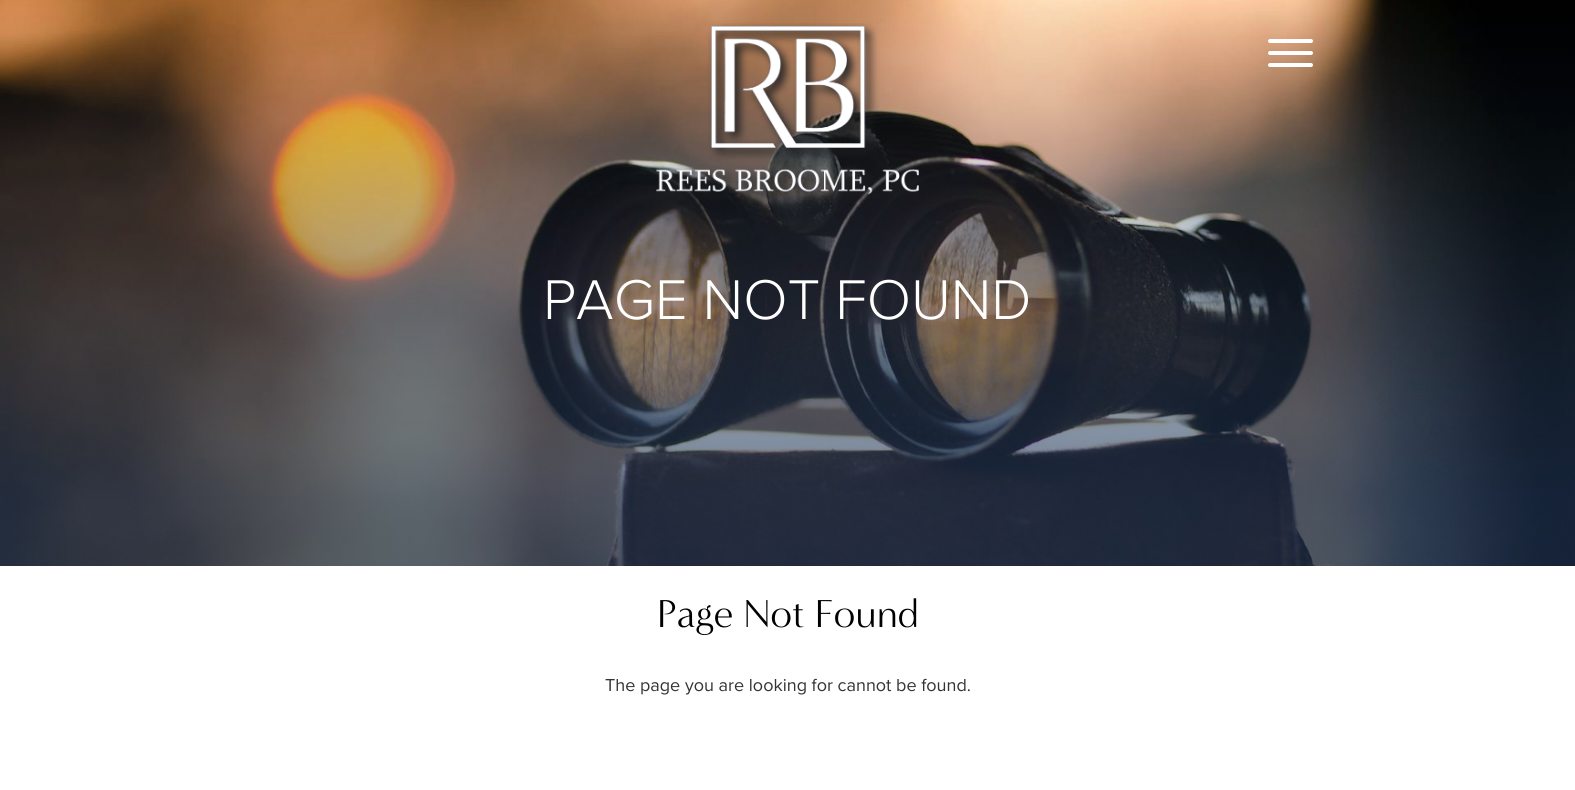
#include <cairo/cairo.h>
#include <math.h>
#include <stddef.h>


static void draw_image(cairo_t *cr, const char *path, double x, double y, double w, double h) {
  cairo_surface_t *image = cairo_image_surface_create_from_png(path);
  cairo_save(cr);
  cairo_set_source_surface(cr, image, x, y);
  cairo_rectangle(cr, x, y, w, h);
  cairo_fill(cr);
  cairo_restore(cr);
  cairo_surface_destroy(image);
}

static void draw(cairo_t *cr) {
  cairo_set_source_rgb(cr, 1, 1, 1);
  cairo_paint(cr);
  draw_image(cr, "images/3.png", 0, 0, 1575, 566);
  draw_image(cr, "images/1.png", 656, 23, 263, 179);
  draw_image(cr, "images/2.png", 1268, 39, 45, 28);
  cairo_select_font_face(cr, "Proxima Nova Light", CAIRO_FONT_SLANT_NORMAL, CAIRO_FONT_WEIGHT_NORMAL);
  cairo_set_font_size(cr, 58);
  cairo_set_source_rgb(cr, 1, 1, 1);
  cairo_move_to(cr, 543, 319);
  cairo_show_text(cr, "PAGE NOT FOUND");
  cairo_select_font_face(cr, "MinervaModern", CAIRO_FONT_SLANT_NORMAL, CAIRO_FONT_WEIGHT_NORMAL);
  cairo_set_font_size(cr, 40);
  cairo_set_source_rgb(cr, 0, 0, 0);
  cairo_move_to(cr, 657, 627);
  cairo_show_text(cr, "Page Not Found");
  cairo_select_font_face(cr, "Proxima Nova", CAIRO_FONT_SLANT_NORMAL, CAIRO_FONT_WEIGHT_NORMAL);
  cairo_set_font_size(cr, 18);
  cairo_set_source_rgb(cr, 52 / 255.0, 52 / 255.0, 52 / 255.0);
  cairo_move_to(cr, 605, 691);
  cairo_show_text(cr, "The page you are looking for cannot be found.");
}

int main(void) {
  cairo_surface_t *surface = cairo_image_surface_create(CAIRO_FORMAT_RGB24, 1575, 790);
  cairo_t *cr = cairo_create(surface);
  cairo_font_options_t *options = cairo_font_options_create();
  cairo_font_options_set_hint_metrics(options, CAIRO_HINT_METRICS_OFF);
  cairo_font_options_set_hint_style(options, CAIRO_HINT_STYLE_NONE);
  cairo_set_font_options(cr, options);
  cairo_set_miter_limit(cr, 4);
  draw(cr);
  cairo_surface_write_to_png(surface, "out.png");
  cairo_font_options_destroy(options);
  cairo_destroy(cr);
  cairo_surface_destroy(surface);
  return 0;
}
